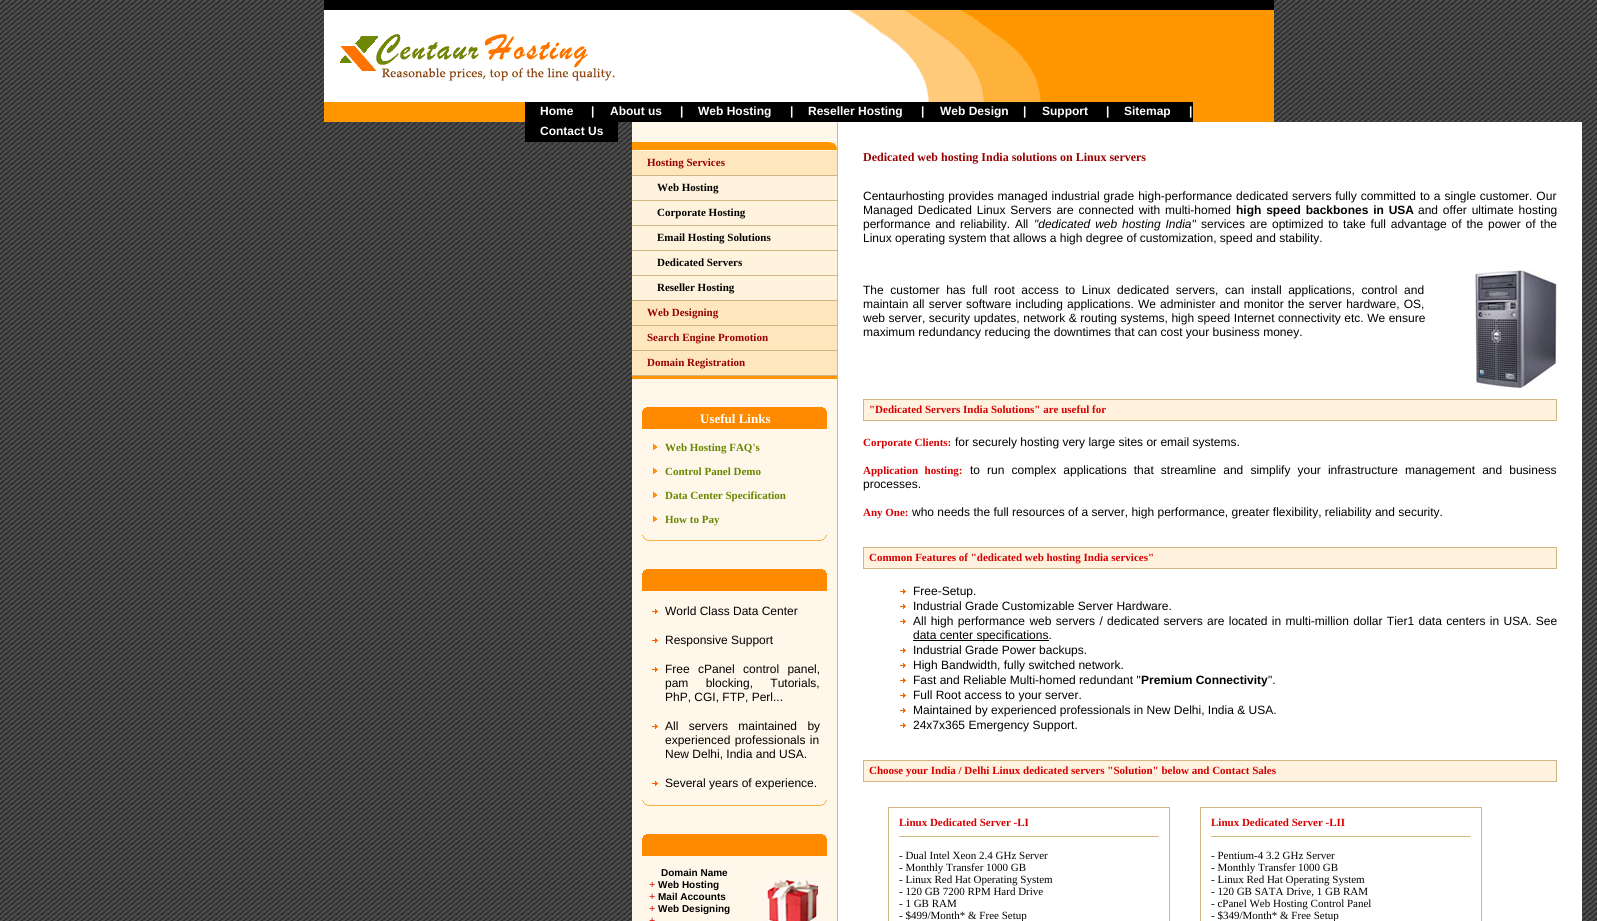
#include <cairo/cairo.h>
#include <math.h>
#include <stddef.h>


static void draw_spaced(cairo_t *cr, double x, double y, const char *s, double letter, double word) {
  cairo_move_to(cr, x, y);
  while (*s) {
    char ch[5] = {0};
    int n = 0;
    do ch[n++] = *s++; while ((*s & 0xC0) == 0x80);
    cairo_show_text(cr, ch);
    cairo_rel_move_to(cr, letter + word * (*ch == ' '), 0);
  }
}

static void draw_image(cairo_t *cr, const char *path, double x, double y, double w, double h) {
  cairo_surface_t *image = cairo_image_surface_create_from_png(path);
  cairo_save(cr);
  cairo_set_source_surface(cr, image, x, y);
  cairo_rectangle(cr, x, y, w, h);
  cairo_fill(cr);
  cairo_restore(cr);
  cairo_surface_destroy(image);
}

static void draw(cairo_t *cr) {
  cairo_set_source_rgb(cr, 1, 1, 1);
  cairo_paint(cr);
  draw_image(cr, "images/1.png", 0, 0, 1597, 921);
  cairo_set_source_rgb(cr, 1, 150 / 255.0, 0);
  cairo_rectangle(cr, 324, 10, 950, 112);
  cairo_fill(cr);
  cairo_set_source_rgb(cr, 0, 0, 0);
  cairo_rectangle(cr, 324, 0, 950, 10);
  cairo_fill(cr);
  draw_image(cr, "images/2.png", 324, 10, 717, 92);
  cairo_rectangle(cr, 525, 102, 668, 20);
  cairo_fill(cr);
  cairo_rectangle(cr, 525, 122, 93, 20);
  cairo_fill(cr);
  cairo_set_source_rgb(cr, 1, 247 / 255.0, 234 / 255.0);
  cairo_rectangle(cr, 632, 122, 205, 799);
  cairo_fill(cr);
  draw_image(cr, "images/3.png", 632, 142, 205, 9);
  cairo_set_source_rgb(cr, 1, 150 / 255.0, 0);
  cairo_rectangle(cr, 632, 376, 205, 3);
  cairo_fill(cr);
  cairo_set_source_rgb(cr, 254 / 255.0, 231 / 255.0, 189 / 255.0);
  cairo_rectangle(cr, 632, 151, 205, 24);
  cairo_fill(cr);
  cairo_set_source_rgb(cr, 209 / 255.0, 182 / 255.0, 132 / 255.0);
  cairo_rectangle(cr, 632, 175, 205, 1);
  cairo_fill(cr);
  cairo_set_source_rgb(cr, 1, 243 / 255.0, 222 / 255.0);
  cairo_rectangle(cr, 632, 176, 205, 24);
  cairo_fill(cr);
  cairo_set_source_rgb(cr, 209 / 255.0, 182 / 255.0, 132 / 255.0);
  cairo_rectangle(cr, 632, 200, 205, 1);
  cairo_fill(cr);
  cairo_set_source_rgb(cr, 1, 243 / 255.0, 222 / 255.0);
  cairo_rectangle(cr, 632, 201, 205, 24);
  cairo_fill(cr);
  cairo_set_source_rgb(cr, 209 / 255.0, 182 / 255.0, 132 / 255.0);
  cairo_rectangle(cr, 632, 225, 205, 1);
  cairo_fill(cr);
  cairo_set_source_rgb(cr, 1, 243 / 255.0, 222 / 255.0);
  cairo_rectangle(cr, 632, 226, 205, 24);
  cairo_fill(cr);
  cairo_set_source_rgb(cr, 209 / 255.0, 182 / 255.0, 132 / 255.0);
  cairo_rectangle(cr, 632, 250, 205, 1);
  cairo_fill(cr);
  cairo_set_source_rgb(cr, 1, 243 / 255.0, 222 / 255.0);
  cairo_rectangle(cr, 632, 251, 205, 24);
  cairo_fill(cr);
  cairo_set_source_rgb(cr, 209 / 255.0, 182 / 255.0, 132 / 255.0);
  cairo_rectangle(cr, 632, 275, 205, 1);
  cairo_fill(cr);
  cairo_set_source_rgb(cr, 1, 243 / 255.0, 222 / 255.0);
  cairo_rectangle(cr, 632, 276, 205, 24);
  cairo_fill(cr);
  cairo_set_source_rgb(cr, 209 / 255.0, 182 / 255.0, 132 / 255.0);
  cairo_rectangle(cr, 632, 300, 205, 1);
  cairo_fill(cr);
  cairo_set_source_rgb(cr, 254 / 255.0, 231 / 255.0, 189 / 255.0);
  cairo_rectangle(cr, 632, 301, 205, 24);
  cairo_fill(cr);
  cairo_set_source_rgb(cr, 209 / 255.0, 182 / 255.0, 132 / 255.0);
  cairo_rectangle(cr, 632, 325, 205, 1);
  cairo_fill(cr);
  cairo_set_source_rgb(cr, 254 / 255.0, 231 / 255.0, 189 / 255.0);
  cairo_rectangle(cr, 632, 326, 205, 24);
  cairo_fill(cr);
  cairo_set_source_rgb(cr, 209 / 255.0, 182 / 255.0, 132 / 255.0);
  cairo_rectangle(cr, 632, 350, 205, 1);
  cairo_fill(cr);
  cairo_set_source_rgb(cr, 254 / 255.0, 231 / 255.0, 189 / 255.0);
  cairo_rectangle(cr, 632, 351, 205, 24);
  cairo_fill(cr);
  cairo_set_source_rgb(cr, 209 / 255.0, 182 / 255.0, 132 / 255.0);
  cairo_rectangle(cr, 632, 375, 205, 1);
  cairo_fill(cr);
  draw_image(cr, "images/4.png", 642, 407, 185, 22);
  draw_image(cr, "images/5.png", 653, 443, 5, 8);
  draw_image(cr, "images/5.png", 653, 467, 5, 8);
  draw_image(cr, "images/5.png", 653, 491, 5, 8);
  draw_image(cr, "images/5.png", 653, 515, 5, 8);
  draw_image(cr, "images/6.png", 642, 535, 185, 6);
  draw_image(cr, "images/7.png", 642, 569, 185, 22);
  draw_image(cr, "images/8.png", 652, 609, 6, 5);
  draw_image(cr, "images/8.png", 652, 638, 6, 5);
  draw_image(cr, "images/8.png", 652, 667, 6, 5);
  draw_image(cr, "images/8.png", 652, 724, 6, 5);
  draw_image(cr, "images/8.png", 652, 781, 6, 5);
  draw_image(cr, "images/6.png", 642, 800, 185, 6);
  draw_image(cr, "images/4.png", 642, 834, 185, 22);
  draw_image(cr, "images/9.png", 766, 878, 54, 43);
  cairo_set_source_rgb(cr, 1, 1, 1);
  cairo_rectangle(cr, 838, 122, 744, 799);
  cairo_fill(cr);
  cairo_set_source_rgb(cr, 1, 178 / 255.0, 57 / 255.0);
  cairo_rectangle(cr, 837, 122, 1, 799);
  cairo_fill(cr);
  draw_image(cr, "images/10.png", 1475, 269, 82, 120);
  cairo_set_source_rgb(cr, 1, 242 / 255.0, 223 / 255.0);
  cairo_rectangle(cr, 863.5, 399.5, 693, 21);
  cairo_fill_preserve(cr);
  cairo_set_source_rgb(cr, 209 / 255.0, 182 / 255.0, 132 / 255.0);
  cairo_set_line_width(cr, 1);
  cairo_stroke(cr);
  cairo_set_source_rgb(cr, 1, 242 / 255.0, 223 / 255.0);
  cairo_rectangle(cr, 863.5, 547.5, 693, 21);
  cairo_fill_preserve(cr);
  cairo_set_source_rgb(cr, 209 / 255.0, 182 / 255.0, 132 / 255.0);
  cairo_stroke(cr);
  draw_image(cr, "images/11.png", 900, 589, 6, 5);
  draw_image(cr, "images/11.png", 900, 604, 6, 5);
  draw_image(cr, "images/11.png", 900, 619, 6, 5);
  cairo_set_source_rgb(cr, 0, 0, 0);
  cairo_rectangle(cr, 913, 640, 136, 1);
  cairo_fill(cr);
  draw_image(cr, "images/11.png", 900, 648, 6, 5);
  draw_image(cr, "images/11.png", 900, 663, 6, 5);
  draw_image(cr, "images/11.png", 900, 678, 6, 5);
  draw_image(cr, "images/11.png", 900, 693, 6, 5);
  draw_image(cr, "images/11.png", 900, 708, 6, 5);
  draw_image(cr, "images/11.png", 900, 723, 6, 5);
  cairo_set_source_rgb(cr, 1, 242 / 255.0, 223 / 255.0);
  cairo_rectangle(cr, 863.5, 760.5, 693, 21);
  cairo_fill_preserve(cr);
  cairo_set_source_rgb(cr, 209 / 255.0, 182 / 255.0, 132 / 255.0);
  cairo_stroke(cr);
  cairo_rectangle(cr, 888.5, 807.5, 281, 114);
  cairo_stroke(cr);
  cairo_rectangle(cr, 899, 836, 260, 1);
  cairo_fill(cr);
  cairo_rectangle(cr, 1200.5, 807.5, 281, 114);
  cairo_stroke(cr);
  cairo_rectangle(cr, 1211, 836, 260, 1);
  cairo_fill(cr);
  cairo_select_font_face(cr, "Liberation Sans", CAIRO_FONT_SLANT_NORMAL, CAIRO_FONT_WEIGHT_BOLD);
  cairo_set_font_size(cr, 12);
  cairo_set_source_rgb(cr, 1, 1, 1);
  cairo_move_to(cr, 540, 115);
  cairo_show_text(cr, "Home");
  cairo_move_to(cr, 591, 115);
  cairo_show_text(cr, "|");
  cairo_move_to(cr, 610, 115);
  cairo_show_text(cr, "About us");
  cairo_move_to(cr, 680, 115);
  cairo_show_text(cr, "|");
  cairo_move_to(cr, 698, 115);
  cairo_show_text(cr, "Web Hosting");
  cairo_move_to(cr, 790, 115);
  cairo_show_text(cr, "|");
  cairo_move_to(cr, 808, 115);
  cairo_show_text(cr, "Reseller Hosting");
  cairo_move_to(cr, 921, 115);
  cairo_show_text(cr, "|");
  cairo_move_to(cr, 940, 115);
  cairo_show_text(cr, "Web Design");
  cairo_move_to(cr, 1023, 115);
  cairo_show_text(cr, "|");
  cairo_move_to(cr, 1042, 115);
  cairo_show_text(cr, "Support");
  cairo_move_to(cr, 1106, 115);
  cairo_show_text(cr, "|");
  cairo_move_to(cr, 1124, 115);
  cairo_show_text(cr, "Sitemap");
  cairo_move_to(cr, 1189, 115);
  cairo_show_text(cr, "|");
  cairo_move_to(cr, 540, 135);
  cairo_show_text(cr, "Contact Us");
  cairo_select_font_face(cr, "Liberation Serif", CAIRO_FONT_SLANT_NORMAL, CAIRO_FONT_WEIGHT_BOLD);
  cairo_set_font_size(cr, 11);
  cairo_set_source_rgb(cr, 151 / 255.0, 1 / 255.0, 0);
  cairo_move_to(cr, 647, 166);
  cairo_show_text(cr, "Hosting Services");
  cairo_set_source_rgb(cr, 0, 0, 0);
  cairo_move_to(cr, 657, 191);
  cairo_show_text(cr, "Web Hosting");
  cairo_move_to(cr, 657, 216);
  cairo_show_text(cr, "Corporate Hosting");
  cairo_move_to(cr, 657, 241);
  cairo_show_text(cr, "Email Hosting Solutions");
  cairo_move_to(cr, 657, 266);
  cairo_show_text(cr, "Dedicated Servers");
  cairo_move_to(cr, 657, 291);
  cairo_show_text(cr, "Reseller Hosting");
  cairo_set_source_rgb(cr, 151 / 255.0, 1 / 255.0, 0);
  cairo_move_to(cr, 647, 316);
  cairo_show_text(cr, "Web Designing");
  cairo_move_to(cr, 647, 341);
  cairo_show_text(cr, "Search Engine Promotion");
  cairo_move_to(cr, 647, 366);
  cairo_show_text(cr, "Domain Registration");
  cairo_set_font_size(cr, 13);
  cairo_set_source_rgb(cr, 1, 1, 1);
  cairo_move_to(cr, 700, 423);
  cairo_show_text(cr, "Useful Links");
  cairo_set_font_size(cr, 11);
  cairo_set_source_rgb(cr, 107 / 255.0, 134 / 255.0, 0);
  cairo_move_to(cr, 665, 451);
  cairo_show_text(cr, "Web Hosting FAQ's");
  cairo_move_to(cr, 665, 475);
  cairo_show_text(cr, "Control Panel Demo");
  cairo_move_to(cr, 665, 499);
  cairo_show_text(cr, "Data Center Specification");
  cairo_move_to(cr, 665, 523);
  cairo_show_text(cr, "How to Pay");
  cairo_select_font_face(cr, "Liberation Sans", CAIRO_FONT_SLANT_NORMAL, CAIRO_FONT_WEIGHT_NORMAL);
  cairo_set_font_size(cr, 12);
  cairo_set_source_rgb(cr, 0, 0, 0);
  cairo_move_to(cr, 665, 615);
  cairo_show_text(cr, "World Class Data Center");
  cairo_move_to(cr, 665, 644);
  cairo_show_text(cr, "Responsive Support");
  draw_spaced(cr, 665, 673, "Free cPanel control panel,", 0, 5);
  draw_spaced(cr, 665, 687, "pam blocking, Tutorials,", 0, 14);
  cairo_move_to(cr, 665, 701);
  cairo_show_text(cr, "PhP, CGI, FTP, Perl...");
  draw_spaced(cr, 665, 730, "All servers maintained by", 0, 7);
  draw_spaced(cr, 665, 744, "experienced professionals in", 0, 1);
  cairo_move_to(cr, 665, 758);
  cairo_show_text(cr, "New Delhi, India and USA.");
  cairo_move_to(cr, 665, 787);
  cairo_show_text(cr, "Several years of experience.");
  cairo_select_font_face(cr, "Liberation Sans", CAIRO_FONT_SLANT_NORMAL, CAIRO_FONT_WEIGHT_BOLD);
  cairo_set_font_size(cr, 10);
  cairo_move_to(cr, 661, 876);
  cairo_show_text(cr, "Domain Name");
  cairo_select_font_face(cr, "Liberation Serif", CAIRO_FONT_SLANT_NORMAL, CAIRO_FONT_WEIGHT_BOLD);
  cairo_set_font_size(cr, 11);
  cairo_set_source_rgb(cr, 214 / 255.0, 0, 0);
  cairo_move_to(cr, 649, 888);
  cairo_show_text(cr, "+");
  cairo_select_font_face(cr, "Liberation Sans", CAIRO_FONT_SLANT_NORMAL, CAIRO_FONT_WEIGHT_BOLD);
  cairo_set_font_size(cr, 10);
  cairo_set_source_rgb(cr, 0, 0, 0);
  cairo_move_to(cr, 658, 888);
  cairo_show_text(cr, "Web Hosting");
  cairo_select_font_face(cr, "Liberation Serif", CAIRO_FONT_SLANT_NORMAL, CAIRO_FONT_WEIGHT_BOLD);
  cairo_set_font_size(cr, 11);
  cairo_set_source_rgb(cr, 214 / 255.0, 0, 0);
  cairo_move_to(cr, 649, 900);
  cairo_show_text(cr, "+");
  cairo_select_font_face(cr, "Liberation Sans", CAIRO_FONT_SLANT_NORMAL, CAIRO_FONT_WEIGHT_BOLD);
  cairo_set_font_size(cr, 10);
  cairo_set_source_rgb(cr, 0, 0, 0);
  cairo_move_to(cr, 658, 900);
  cairo_show_text(cr, "Mail Accounts");
  cairo_select_font_face(cr, "Liberation Serif", CAIRO_FONT_SLANT_NORMAL, CAIRO_FONT_WEIGHT_BOLD);
  cairo_set_font_size(cr, 11);
  cairo_set_source_rgb(cr, 214 / 255.0, 0, 0);
  cairo_move_to(cr, 649, 912);
  cairo_show_text(cr, "+");
  cairo_select_font_face(cr, "Liberation Sans", CAIRO_FONT_SLANT_NORMAL, CAIRO_FONT_WEIGHT_BOLD);
  cairo_set_font_size(cr, 10);
  cairo_set_source_rgb(cr, 0, 0, 0);
  cairo_move_to(cr, 658, 912);
  cairo_show_text(cr, "Web Designing");
  cairo_select_font_face(cr, "Liberation Serif", CAIRO_FONT_SLANT_NORMAL, CAIRO_FONT_WEIGHT_BOLD);
  cairo_set_font_size(cr, 11);
  cairo_set_source_rgb(cr, 214 / 255.0, 0, 0);
  cairo_move_to(cr, 649, 924);
  cairo_show_text(cr, "+");
  cairo_set_font_size(cr, 12);
  cairo_set_source_rgb(cr, 151 / 255.0, 1 / 255.0, 0);
  cairo_move_to(cr, 863, 161);
  cairo_show_text(cr, "Dedicated web hosting India solutions on Linux servers");
  cairo_select_font_face(cr, "Liberation Sans", CAIRO_FONT_SLANT_NORMAL, CAIRO_FONT_WEIGHT_NORMAL);
  cairo_set_source_rgb(cr, 0, 0, 0);
  draw_spaced(cr, 863, 200, "Centaurhosting provides managed industrial grade high-performance dedicated servers fully committed to a single customer. Our", 0, 0.6);
  draw_spaced(cr, 863, 214, "Managed Dedicated Linux Servers are connected with multi-homed", 0, 1.5);
  cairo_select_font_face(cr, "Liberation Sans", CAIRO_FONT_SLANT_NORMAL, CAIRO_FONT_WEIGHT_BOLD);
  draw_spaced(cr, 1236, 214, "high speed backbones in USA", 0, 1.5);
  cairo_select_font_face(cr, "Liberation Sans", CAIRO_FONT_SLANT_NORMAL, CAIRO_FONT_WEIGHT_NORMAL);
  draw_spaced(cr, 1418, 214, "and offer ultimate hosting", 0, 1.5);
  draw_spaced(cr, 863, 228, "performance and reliability. All", 0, 1.5);
  cairo_select_font_face(cr, "Liberation Sans", CAIRO_FONT_SLANT_ITALIC, CAIRO_FONT_WEIGHT_NORMAL);
  draw_spaced(cr, 1034, 228, "\"dedicated web hosting India\"", 0, 1.5);
  cairo_select_font_face(cr, "Liberation Sans", CAIRO_FONT_SLANT_NORMAL, CAIRO_FONT_WEIGHT_NORMAL);
  draw_spaced(cr, 1201, 228, "services are optimized to take full advantage of the power of the", 0, 1.5);
  cairo_move_to(cr, 863, 242);
  cairo_show_text(cr, "Linux operating system that allows a high degree of customization, speed and stability.");
  draw_spaced(cr, 863, 294, "The customer has full root access to Linux dedicated servers, can install applications, control and", 0, 3.25);
  draw_spaced(cr, 863, 308, "maintain all server software including applications. We administer and monitor the server hardware, OS,", 0, 0.8);
  draw_spaced(cr, 863, 322, "web server, security updates, network & routing systems, high speed Internet connectivity etc. We ensure", 0, 0.2);
  cairo_move_to(cr, 863, 336);
  cairo_show_text(cr, "maximum redundancy reducing the downtimes that can cost your business money.");
  cairo_select_font_face(cr, "Liberation Serif", CAIRO_FONT_SLANT_NORMAL, CAIRO_FONT_WEIGHT_BOLD);
  cairo_set_font_size(cr, 11);
  cairo_set_source_rgb(cr, 214 / 255.0, 0, 0);
  cairo_move_to(cr, 869, 413);
  cairo_show_text(cr, "\"Dedicated Servers India Solutions\" are useful for");
  cairo_move_to(cr, 863, 446);
  cairo_show_text(cr, "Corporate Clients:");
  cairo_select_font_face(cr, "Liberation Sans", CAIRO_FONT_SLANT_NORMAL, CAIRO_FONT_WEIGHT_NORMAL);
  cairo_set_font_size(cr, 12);
  cairo_set_source_rgb(cr, 0, 0, 0);
  cairo_move_to(cr, 955, 446);
  cairo_show_text(cr, "for securely hosting very large sites or email systems.");
  cairo_select_font_face(cr, "Liberation Serif", CAIRO_FONT_SLANT_NORMAL, CAIRO_FONT_WEIGHT_BOLD);
  cairo_set_font_size(cr, 11);
  cairo_set_source_rgb(cr, 214 / 255.0, 0, 0);
  draw_spaced(cr, 863, 474, "Application hosting:", 0, 3.75);
  cairo_select_font_face(cr, "Liberation Sans", CAIRO_FONT_SLANT_NORMAL, CAIRO_FONT_WEIGHT_NORMAL);
  cairo_set_font_size(cr, 12);
  cairo_set_source_rgb(cr, 0, 0, 0);
  draw_spaced(cr, 970, 474, "to run complex applications that streamline and simplify your infrastructure management and business", 0, 3.75);
  cairo_move_to(cr, 863, 488);
  cairo_show_text(cr, "processes.");
  cairo_select_font_face(cr, "Liberation Serif", CAIRO_FONT_SLANT_NORMAL, CAIRO_FONT_WEIGHT_BOLD);
  cairo_set_font_size(cr, 11);
  cairo_set_source_rgb(cr, 214 / 255.0, 0, 0);
  cairo_move_to(cr, 863, 516);
  cairo_show_text(cr, "Any One:");
  cairo_select_font_face(cr, "Liberation Sans", CAIRO_FONT_SLANT_NORMAL, CAIRO_FONT_WEIGHT_NORMAL);
  cairo_set_font_size(cr, 12);
  cairo_set_source_rgb(cr, 0, 0, 0);
  cairo_move_to(cr, 912, 516);
  cairo_show_text(cr, "who needs the full resources of a server, high performance, greater flexibility, reliability and security.");
  cairo_select_font_face(cr, "Liberation Serif", CAIRO_FONT_SLANT_NORMAL, CAIRO_FONT_WEIGHT_BOLD);
  cairo_set_font_size(cr, 11);
  cairo_set_source_rgb(cr, 214 / 255.0, 0, 0);
  cairo_move_to(cr, 869, 561);
  cairo_show_text(cr, "Common Features of \"dedicated web hosting India services\"");
  cairo_select_font_face(cr, "Liberation Sans", CAIRO_FONT_SLANT_NORMAL, CAIRO_FONT_WEIGHT_NORMAL);
  cairo_set_font_size(cr, 12);
  cairo_set_source_rgb(cr, 0, 0, 0);
  cairo_move_to(cr, 913, 595);
  cairo_show_text(cr, "Free-Setup.");
  cairo_move_to(cr, 913, 610);
  cairo_show_text(cr, "Industrial Grade Customizable Server Hardware.");
  draw_spaced(cr, 913, 625, "All high performance web servers / dedicated servers are located in multi-million dollar Tier1 data centers in USA. See", 0, 1);
  cairo_move_to(cr, 913, 639);
  cairo_show_text(cr, "data center specifications.");
  cairo_move_to(cr, 913, 654);
  cairo_show_text(cr, "Industrial Grade Power backups.");
  cairo_move_to(cr, 913, 669);
  cairo_show_text(cr, "High Bandwidth, fully switched network.");
  cairo_move_to(cr, 913, 684);
  cairo_show_text(cr, "Fast and Reliable Multi-homed redundant \"");
  cairo_select_font_face(cr, "Liberation Sans", CAIRO_FONT_SLANT_NORMAL, CAIRO_FONT_WEIGHT_BOLD);
  cairo_move_to(cr, 1141, 684);
  cairo_show_text(cr, "Premium Connectivity");
  cairo_select_font_face(cr, "Liberation Sans", CAIRO_FONT_SLANT_NORMAL, CAIRO_FONT_WEIGHT_NORMAL);
  cairo_move_to(cr, 1268, 684);
  cairo_show_text(cr, "\".");
  cairo_move_to(cr, 913, 699);
  cairo_show_text(cr, "Full Root access to your server.");
  cairo_move_to(cr, 913, 714);
  cairo_show_text(cr, "Maintained by experienced professionals in New Delhi, India & USA.");
  cairo_move_to(cr, 913, 729);
  cairo_show_text(cr, "24x7x365 Emergency Support.");
  cairo_select_font_face(cr, "Liberation Serif", CAIRO_FONT_SLANT_NORMAL, CAIRO_FONT_WEIGHT_BOLD);
  cairo_set_font_size(cr, 11);
  cairo_set_source_rgb(cr, 214 / 255.0, 0, 0);
  cairo_move_to(cr, 869, 774);
  cairo_show_text(cr, "Choose your India / Delhi Linux dedicated servers \"Solution\" below and Contact Sales");
  cairo_move_to(cr, 899, 826);
  cairo_show_text(cr, "Linux Dedicated Server -LI");
  cairo_select_font_face(cr, "Liberation Serif", CAIRO_FONT_SLANT_NORMAL, CAIRO_FONT_WEIGHT_NORMAL);
  cairo_set_source_rgb(cr, 0, 0, 0);
  cairo_move_to(cr, 899, 859);
  cairo_show_text(cr, "- Dual Intel Xeon 2.4 GHz Server");
  cairo_move_to(cr, 899, 871);
  cairo_show_text(cr, "- Monthly Transfer 1000 GB");
  cairo_move_to(cr, 899, 883);
  cairo_show_text(cr, "- Linux Red Hat Operating System");
  cairo_move_to(cr, 899, 895);
  cairo_show_text(cr, "- 120 GB 7200 RPM Hard Drive");
  cairo_move_to(cr, 899, 907);
  cairo_show_text(cr, "- 1 GB RAM");
  cairo_move_to(cr, 899, 919);
  cairo_show_text(cr, "- $499/Month* & Free Setup");
  cairo_select_font_face(cr, "Liberation Serif", CAIRO_FONT_SLANT_NORMAL, CAIRO_FONT_WEIGHT_BOLD);
  cairo_set_source_rgb(cr, 214 / 255.0, 0, 0);
  cairo_move_to(cr, 1211, 826);
  cairo_show_text(cr, "Linux Dedicated Server -LII");
  cairo_select_font_face(cr, "Liberation Serif", CAIRO_FONT_SLANT_NORMAL, CAIRO_FONT_WEIGHT_NORMAL);
  cairo_set_source_rgb(cr, 0, 0, 0);
  cairo_move_to(cr, 1211, 859);
  cairo_show_text(cr, "- Pentium-4 3.2 GHz Server");
  cairo_move_to(cr, 1211, 871);
  cairo_show_text(cr, "- Monthly Transfer 1000 GB");
  cairo_move_to(cr, 1211, 883);
  cairo_show_text(cr, "- Linux Red Hat Operating System");
  cairo_move_to(cr, 1211, 895);
  cairo_show_text(cr, "- 120 GB SATA Drive, 1 GB RAM");
  cairo_move_to(cr, 1211, 907);
  cairo_show_text(cr, "- cPanel Web Hosting Control Panel");
  cairo_move_to(cr, 1211, 919);
  cairo_show_text(cr, "- $349/Month* & Free Setup");
}

int main(void) {
  cairo_surface_t *surface = cairo_image_surface_create(CAIRO_FORMAT_RGB24, 1597, 921);
  cairo_t *cr = cairo_create(surface);
  cairo_font_options_t *options = cairo_font_options_create();
  cairo_font_options_set_hint_metrics(options, CAIRO_HINT_METRICS_OFF);
  cairo_font_options_set_hint_style(options, CAIRO_HINT_STYLE_NONE);
  cairo_set_font_options(cr, options);
  cairo_set_miter_limit(cr, 4);
  draw(cr);
  cairo_surface_write_to_png(surface, "out.png");
  cairo_font_options_destroy(options);
  cairo_destroy(cr);
  cairo_surface_destroy(surface);
  return 0;
}
